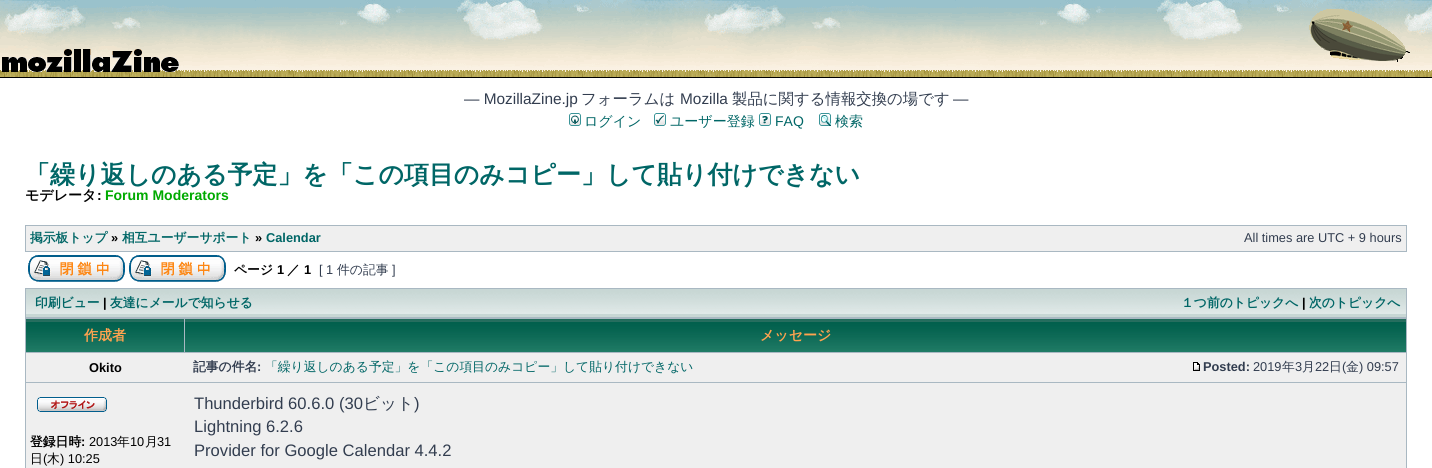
#include <cairo/cairo.h>
#include <math.h>
#include <stddef.h>


static void draw_image(cairo_t *cr, const char *path, double x, double y, double w, double h) {
  cairo_surface_t *image = cairo_image_surface_create_from_png(path);
  cairo_save(cr);
  cairo_set_source_surface(cr, image, x, y);
  cairo_rectangle(cr, x, y, w, h);
  cairo_fill(cr);
  cairo_restore(cr);
  cairo_surface_destroy(image);
}

static void draw(cairo_t *cr) {
  cairo_set_source_rgb(cr, 1, 1, 1);
  cairo_paint(cr);
  draw_image(cr, "images/1.png", 0, 0, 1432, 78);
  draw_image(cr, "images/2.png", 2, 49, 177, 23);
  draw_image(cr, "images/3.png", 1309, 9, 101, 53);
  draw_image(cr, "images/4.png", 569, 113, 12, 13);
  draw_image(cr, "images/5.png", 654, 113, 12, 13);
  draw_image(cr, "images/6.png", 759, 113, 12, 13);
  draw_image(cr, "images/7.png", 819, 113, 12, 13);
  cairo_set_source_rgb(cr, 169 / 255.0, 184 / 255.0, 194 / 255.0);
  cairo_rectangle(cr, 25, 225, 1382, 27);
  cairo_fill(cr);
  cairo_set_source_rgb(cr, 239 / 255.0, 239 / 255.0, 239 / 255.0);
  cairo_rectangle(cr, 26, 226, 1380, 25);
  cairo_fill(cr);
  draw_image(cr, "images/8.png", 28, 255, 97, 27);
  draw_image(cr, "images/8.png", 129, 255, 97, 27);
  cairo_set_source_rgb(cr, 169 / 255.0, 184 / 255.0, 194 / 255.0);
  cairo_rectangle(cr, 25, 288, 1382, 180);
  cairo_fill(cr);
  draw_image(cr, "images/9.png", 26, 289, 1380, 28);
  draw_image(cr, "images/10.png", 26, 319, 158, 33);
  draw_image(cr, "images/11.png", 185, 319, 1221, 33);
  cairo_set_source_rgb(cr, 239 / 255.0, 239 / 255.0, 239 / 255.0);
  cairo_rectangle(cr, 26, 353, 1380, 29);
  cairo_fill(cr);
  draw_image(cr, "images/12.png", 1193, 362, 7, 9);
  cairo_rectangle(cr, 26, 383, 1380, 85);
  cairo_fill(cr);
  draw_image(cr, "images/13.png", 37, 397, 70, 15);
  cairo_select_font_face(cr, "Liberation Sans", CAIRO_FONT_SLANT_NORMAL, CAIRO_FONT_WEIGHT_NORMAL);
  cairo_set_font_size(cr, 15.4);
  cairo_set_source_rgb(cr, 50 / 255.0, 61 / 255.0, 79 / 255.0);
  cairo_move_to(cr, 464, 104);
  cairo_show_text(cr, "― MozillaZine.jp");
  cairo_select_font_face(cr, "WenQuanYi Zen Hei Medium", CAIRO_FONT_SLANT_NORMAL, CAIRO_FONT_WEIGHT_NORMAL);
  cairo_move_to(cr, 581, 104);
  cairo_show_text(cr, "フォーラムは");
  cairo_select_font_face(cr, "Liberation Sans", CAIRO_FONT_SLANT_NORMAL, CAIRO_FONT_WEIGHT_NORMAL);
  cairo_move_to(cr, 680, 104);
  cairo_show_text(cr, "Mozilla");
  cairo_select_font_face(cr, "WenQuanYi Zen Hei Medium", CAIRO_FONT_SLANT_NORMAL, CAIRO_FONT_WEIGHT_NORMAL);
  cairo_move_to(cr, 732, 104);
  cairo_show_text(cr, "製品に関する情報交換の場です");
  cairo_select_font_face(cr, "Liberation Sans", CAIRO_FONT_SLANT_NORMAL, CAIRO_FONT_WEIGHT_NORMAL);
  cairo_move_to(cr, 953, 104);
  cairo_show_text(cr, "―");
  cairo_select_font_face(cr, "WenQuanYi Zen Hei Medium", CAIRO_FONT_SLANT_NORMAL, CAIRO_FONT_WEIGHT_NORMAL);
  cairo_set_font_size(cr, 14);
  cairo_set_source_rgb(cr, 0, 102 / 255.0, 102 / 255.0);
  cairo_move_to(cr, 584, 126);
  cairo_show_text(cr, "ログイン");
  cairo_move_to(cr, 670, 126);
  cairo_show_text(cr, "ユーザー登録");
  cairo_select_font_face(cr, "Liberation Sans", CAIRO_FONT_SLANT_NORMAL, CAIRO_FONT_WEIGHT_NORMAL);
  cairo_move_to(cr, 775, 126);
  cairo_show_text(cr, "FAQ");
  cairo_select_font_face(cr, "WenQuanYi Zen Hei Medium", CAIRO_FONT_SLANT_NORMAL, CAIRO_FONT_WEIGHT_NORMAL);
  cairo_move_to(cr, 835, 126);
  cairo_show_text(cr, "検索");
  cairo_select_font_face(cr, "WenQuanYi Zen Hei", CAIRO_FONT_SLANT_NORMAL, CAIRO_FONT_WEIGHT_BOLD);
  cairo_set_font_size(cr, 24.95);
  cairo_move_to(cr, 25, 183);
  cairo_show_text(cr, "「繰り返しのある予定」を「この項目のみコピー」して貼り付けできない");
  cairo_set_font_size(cr, 14);
  cairo_set_source_rgb(cr, 0, 0, 0);
  cairo_move_to(cr, 25, 200);
  cairo_show_text(cr, "モデレータ");
  cairo_select_font_face(cr, "Liberation Sans", CAIRO_FONT_SLANT_NORMAL, CAIRO_FONT_WEIGHT_BOLD);
  cairo_move_to(cr, 97, 200);
  cairo_show_text(cr, ":");
  cairo_set_source_rgb(cr, 0, 170 / 255.0, 0);
  cairo_move_to(cr, 105, 200);
  cairo_show_text(cr, "Forum Moderators");
  cairo_select_font_face(cr, "WenQuanYi Zen Hei", CAIRO_FONT_SLANT_NORMAL, CAIRO_FONT_WEIGHT_BOLD);
  cairo_set_font_size(cr, 12.8);
  cairo_set_source_rgb(cr, 0, 102 / 255.0, 102 / 255.0);
  cairo_move_to(cr, 30, 242);
  cairo_show_text(cr, "掲示板トップ");
  cairo_select_font_face(cr, "Liberation Sans", CAIRO_FONT_SLANT_NORMAL, CAIRO_FONT_WEIGHT_BOLD);
  cairo_set_source_rgb(cr, 0, 0, 0);
  cairo_move_to(cr, 111, 242);
  cairo_show_text(cr, "»");
  cairo_select_font_face(cr, "WenQuanYi Zen Hei", CAIRO_FONT_SLANT_NORMAL, CAIRO_FONT_WEIGHT_BOLD);
  cairo_set_source_rgb(cr, 0, 102 / 255.0, 102 / 255.0);
  cairo_move_to(cr, 122, 242);
  cairo_show_text(cr, "相互ユーザーサポート");
  cairo_select_font_face(cr, "Liberation Sans", CAIRO_FONT_SLANT_NORMAL, CAIRO_FONT_WEIGHT_BOLD);
  cairo_set_source_rgb(cr, 0, 0, 0);
  cairo_move_to(cr, 255, 242);
  cairo_show_text(cr, "»");
  cairo_set_source_rgb(cr, 0, 102 / 255.0, 102 / 255.0);
  cairo_move_to(cr, 266, 242);
  cairo_show_text(cr, "Calendar");
  cairo_select_font_face(cr, "Liberation Sans", CAIRO_FONT_SLANT_NORMAL, CAIRO_FONT_WEIGHT_NORMAL);
  cairo_set_source_rgb(cr, 50 / 255.0, 61 / 255.0, 79 / 255.0);
  cairo_move_to(cr, 1244, 242);
  cairo_show_text(cr, "All times are UTC + 9 hours");
  cairo_select_font_face(cr, "WenQuanYi Zen Hei", CAIRO_FONT_SLANT_NORMAL, CAIRO_FONT_WEIGHT_BOLD);
  cairo_set_source_rgb(cr, 0, 0, 0);
  cairo_move_to(cr, 234, 274);
  cairo_show_text(cr, "ページ");
  cairo_select_font_face(cr, "Liberation Sans", CAIRO_FONT_SLANT_NORMAL, CAIRO_FONT_WEIGHT_BOLD);
  cairo_move_to(cr, 277, 274);
  cairo_show_text(cr, "1");
  cairo_select_font_face(cr, "WenQuanYi Zen Hei", CAIRO_FONT_SLANT_NORMAL, CAIRO_FONT_WEIGHT_BOLD);
  cairo_move_to(cr, 287, 274);
  cairo_show_text(cr, "／");
  cairo_select_font_face(cr, "Liberation Sans", CAIRO_FONT_SLANT_NORMAL, CAIRO_FONT_WEIGHT_BOLD);
  cairo_move_to(cr, 304, 274);
  cairo_show_text(cr, "1");
  cairo_select_font_face(cr, "Liberation Sans", CAIRO_FONT_SLANT_NORMAL, CAIRO_FONT_WEIGHT_NORMAL);
  cairo_set_source_rgb(cr, 50 / 255.0, 61 / 255.0, 79 / 255.0);
  cairo_move_to(cr, 319, 274);
  cairo_show_text(cr, "[ 1");
  cairo_select_font_face(cr, "WenQuanYi Zen Hei Medium", CAIRO_FONT_SLANT_NORMAL, CAIRO_FONT_WEIGHT_NORMAL);
  cairo_move_to(cr, 337, 274);
  cairo_show_text(cr, "件の記事");
  cairo_select_font_face(cr, "Liberation Sans", CAIRO_FONT_SLANT_NORMAL, CAIRO_FONT_WEIGHT_NORMAL);
  cairo_move_to(cr, 392, 274);
  cairo_show_text(cr, "]");
  cairo_select_font_face(cr, "WenQuanYi Zen Hei", CAIRO_FONT_SLANT_NORMAL, CAIRO_FONT_WEIGHT_BOLD);
  cairo_set_source_rgb(cr, 0, 102 / 255.0, 102 / 255.0);
  cairo_move_to(cr, 35, 307);
  cairo_show_text(cr, "印刷ビュー");
  cairo_select_font_face(cr, "Liberation Sans", CAIRO_FONT_SLANT_NORMAL, CAIRO_FONT_WEIGHT_BOLD);
  cairo_set_source_rgb(cr, 0, 0, 0);
  cairo_move_to(cr, 103, 307);
  cairo_show_text(cr, "|");
  cairo_select_font_face(cr, "WenQuanYi Zen Hei", CAIRO_FONT_SLANT_NORMAL, CAIRO_FONT_WEIGHT_BOLD);
  cairo_set_source_rgb(cr, 0, 102 / 255.0, 102 / 255.0);
  cairo_move_to(cr, 110, 307);
  cairo_show_text(cr, "友達にメールで知らせる");
  cairo_move_to(cr, 1181, 307);
  cairo_show_text(cr, "１つ前のトピックへ");
  cairo_select_font_face(cr, "Liberation Sans", CAIRO_FONT_SLANT_NORMAL, CAIRO_FONT_WEIGHT_BOLD);
  cairo_set_source_rgb(cr, 0, 0, 0);
  cairo_move_to(cr, 1302, 307);
  cairo_show_text(cr, "|");
  cairo_select_font_face(cr, "WenQuanYi Zen Hei", CAIRO_FONT_SLANT_NORMAL, CAIRO_FONT_WEIGHT_BOLD);
  cairo_set_source_rgb(cr, 0, 102 / 255.0, 102 / 255.0);
  cairo_move_to(cr, 1309, 307);
  cairo_show_text(cr, "次のトピックへ");
  cairo_set_font_size(cr, 14);
  cairo_set_source_rgb(cr, 1, 163 / 255.0, 79 / 255.0);
  cairo_move_to(cr, 84, 340);
  cairo_show_text(cr, "作成者");
  cairo_move_to(cr, 760, 340);
  cairo_show_text(cr, "メッセージ");
  cairo_select_font_face(cr, "Liberation Sans", CAIRO_FONT_SLANT_NORMAL, CAIRO_FONT_WEIGHT_BOLD);
  cairo_set_font_size(cr, 12.8);
  cairo_set_source_rgb(cr, 0, 0, 0);
  cairo_move_to(cr, 89, 372);
  cairo_show_text(cr, "Okito");
  cairo_select_font_face(cr, "WenQuanYi Zen Hei", CAIRO_FONT_SLANT_NORMAL, CAIRO_FONT_WEIGHT_BOLD);
  cairo_set_source_rgb(cr, 50 / 255.0, 61 / 255.0, 79 / 255.0);
  cairo_move_to(cr, 193, 371);
  cairo_show_text(cr, "記事の件名");
  cairo_select_font_face(cr, "Liberation Sans", CAIRO_FONT_SLANT_NORMAL, CAIRO_FONT_WEIGHT_BOLD);
  cairo_move_to(cr, 257, 371);
  cairo_show_text(cr, ":");
  cairo_select_font_face(cr, "WenQuanYi Zen Hei Medium", CAIRO_FONT_SLANT_NORMAL, CAIRO_FONT_WEIGHT_NORMAL);
  cairo_set_source_rgb(cr, 0, 102 / 255.0, 102 / 255.0);
  cairo_move_to(cr, 265, 371);
  cairo_show_text(cr, "「繰り返しのある予定」を「この項目のみコピー」して貼り付けできない");
  cairo_select_font_face(cr, "Liberation Sans", CAIRO_FONT_SLANT_NORMAL, CAIRO_FONT_WEIGHT_BOLD);
  cairo_set_source_rgb(cr, 50 / 255.0, 61 / 255.0, 79 / 255.0);
  cairo_move_to(cr, 1203, 371);
  cairo_show_text(cr, "Posted:");
  cairo_select_font_face(cr, "Liberation Sans", CAIRO_FONT_SLANT_NORMAL, CAIRO_FONT_WEIGHT_NORMAL);
  cairo_move_to(cr, 1253, 371);
  cairo_show_text(cr, "2019");
  cairo_select_font_face(cr, "WenQuanYi Zen Hei Medium", CAIRO_FONT_SLANT_NORMAL, CAIRO_FONT_WEIGHT_NORMAL);
  cairo_move_to(cr, 1282, 371);
  cairo_show_text(cr, "年");
  cairo_select_font_face(cr, "Liberation Sans", CAIRO_FONT_SLANT_NORMAL, CAIRO_FONT_WEIGHT_NORMAL);
  cairo_move_to(cr, 1295, 371);
  cairo_show_text(cr, "3");
  cairo_select_font_face(cr, "WenQuanYi Zen Hei Medium", CAIRO_FONT_SLANT_NORMAL, CAIRO_FONT_WEIGHT_NORMAL);
  cairo_move_to(cr, 1302, 371);
  cairo_show_text(cr, "月");
  cairo_select_font_face(cr, "Liberation Sans", CAIRO_FONT_SLANT_NORMAL, CAIRO_FONT_WEIGHT_NORMAL);
  cairo_move_to(cr, 1315, 371);
  cairo_show_text(cr, "22");
  cairo_select_font_face(cr, "WenQuanYi Zen Hei Medium", CAIRO_FONT_SLANT_NORMAL, CAIRO_FONT_WEIGHT_NORMAL);
  cairo_move_to(cr, 1329, 371);
  cairo_show_text(cr, "日");
  cairo_select_font_face(cr, "Liberation Sans", CAIRO_FONT_SLANT_NORMAL, CAIRO_FONT_WEIGHT_NORMAL);
  cairo_move_to(cr, 1342, 371);
  cairo_show_text(cr, "(");
  cairo_select_font_face(cr, "WenQuanYi Zen Hei Medium", CAIRO_FONT_SLANT_NORMAL, CAIRO_FONT_WEIGHT_NORMAL);
  cairo_move_to(cr, 1346, 371);
  cairo_show_text(cr, "金");
  cairo_select_font_face(cr, "Liberation Sans", CAIRO_FONT_SLANT_NORMAL, CAIRO_FONT_WEIGHT_NORMAL);
  cairo_move_to(cr, 1359, 371);
  cairo_show_text(cr, ") 09:57");
  cairo_select_font_face(cr, "WenQuanYi Zen Hei", CAIRO_FONT_SLANT_NORMAL, CAIRO_FONT_WEIGHT_BOLD);
  cairo_set_source_rgb(cr, 0, 0, 0);
  cairo_move_to(cr, 30, 446);
  cairo_show_text(cr, "登録日時");
  cairo_select_font_face(cr, "Liberation Sans", CAIRO_FONT_SLANT_NORMAL, CAIRO_FONT_WEIGHT_BOLD);
  cairo_move_to(cr, 81, 446);
  cairo_show_text(cr, ":");
  cairo_select_font_face(cr, "Liberation Sans", CAIRO_FONT_SLANT_NORMAL, CAIRO_FONT_WEIGHT_NORMAL);
  cairo_move_to(cr, 89, 446);
  cairo_show_text(cr, "2013");
  cairo_select_font_face(cr, "WenQuanYi Zen Hei Medium", CAIRO_FONT_SLANT_NORMAL, CAIRO_FONT_WEIGHT_NORMAL);
  cairo_move_to(cr, 117, 446);
  cairo_show_text(cr, "年");
  cairo_select_font_face(cr, "Liberation Sans", CAIRO_FONT_SLANT_NORMAL, CAIRO_FONT_WEIGHT_NORMAL);
  cairo_move_to(cr, 130, 446);
  cairo_show_text(cr, "10");
  cairo_select_font_face(cr, "WenQuanYi Zen Hei Medium", CAIRO_FONT_SLANT_NORMAL, CAIRO_FONT_WEIGHT_NORMAL);
  cairo_move_to(cr, 145, 446);
  cairo_show_text(cr, "月");
  cairo_select_font_face(cr, "Liberation Sans", CAIRO_FONT_SLANT_NORMAL, CAIRO_FONT_WEIGHT_NORMAL);
  cairo_move_to(cr, 157, 446);
  cairo_show_text(cr, "31");
  cairo_select_font_face(cr, "WenQuanYi Zen Hei Medium", CAIRO_FONT_SLANT_NORMAL, CAIRO_FONT_WEIGHT_NORMAL);
  cairo_move_to(cr, 30, 463);
  cairo_show_text(cr, "日");
  cairo_select_font_face(cr, "Liberation Sans", CAIRO_FONT_SLANT_NORMAL, CAIRO_FONT_WEIGHT_NORMAL);
  cairo_move_to(cr, 43, 463);
  cairo_show_text(cr, "(");
  cairo_select_font_face(cr, "WenQuanYi Zen Hei Medium", CAIRO_FONT_SLANT_NORMAL, CAIRO_FONT_WEIGHT_NORMAL);
  cairo_move_to(cr, 47, 463);
  cairo_show_text(cr, "木");
  cairo_select_font_face(cr, "Liberation Sans", CAIRO_FONT_SLANT_NORMAL, CAIRO_FONT_WEIGHT_NORMAL);
  cairo_move_to(cr, 60, 463);
  cairo_show_text(cr, ") 10:25");
  cairo_set_font_size(cr, 16.6);
  cairo_set_source_rgb(cr, 50 / 255.0, 61 / 255.0, 79 / 255.0);
  cairo_move_to(cr, 194, 409);
  cairo_show_text(cr, "Thunderbird 60.6.0 (30");
  cairo_select_font_face(cr, "WenQuanYi Zen Hei Medium", CAIRO_FONT_SLANT_NORMAL, CAIRO_FONT_WEIGHT_NORMAL);
  cairo_move_to(cr, 363, 409);
  cairo_show_text(cr, "ビット");
  cairo_select_font_face(cr, "Liberation Sans", CAIRO_FONT_SLANT_NORMAL, CAIRO_FONT_WEIGHT_NORMAL);
  cairo_move_to(cr, 414, 409);
  cairo_show_text(cr, ")");
  cairo_move_to(cr, 194, 432);
  cairo_show_text(cr, "Lightning 6.2.6");
  cairo_move_to(cr, 194, 456);
  cairo_show_text(cr, "Provider for Google Calendar 4.4.2");
}

int main(void) {
  cairo_surface_t *surface = cairo_image_surface_create(CAIRO_FORMAT_RGB24, 1432, 468);
  cairo_t *cr = cairo_create(surface);
  cairo_font_options_t *options = cairo_font_options_create();
  cairo_font_options_set_hint_metrics(options, CAIRO_HINT_METRICS_OFF);
  cairo_font_options_set_hint_style(options, CAIRO_HINT_STYLE_NONE);
  cairo_set_font_options(cr, options);
  cairo_set_miter_limit(cr, 4);
  draw(cr);
  cairo_surface_write_to_png(surface, "out.png");
  cairo_font_options_destroy(options);
  cairo_destroy(cr);
  cairo_surface_destroy(surface);
  return 0;
}
